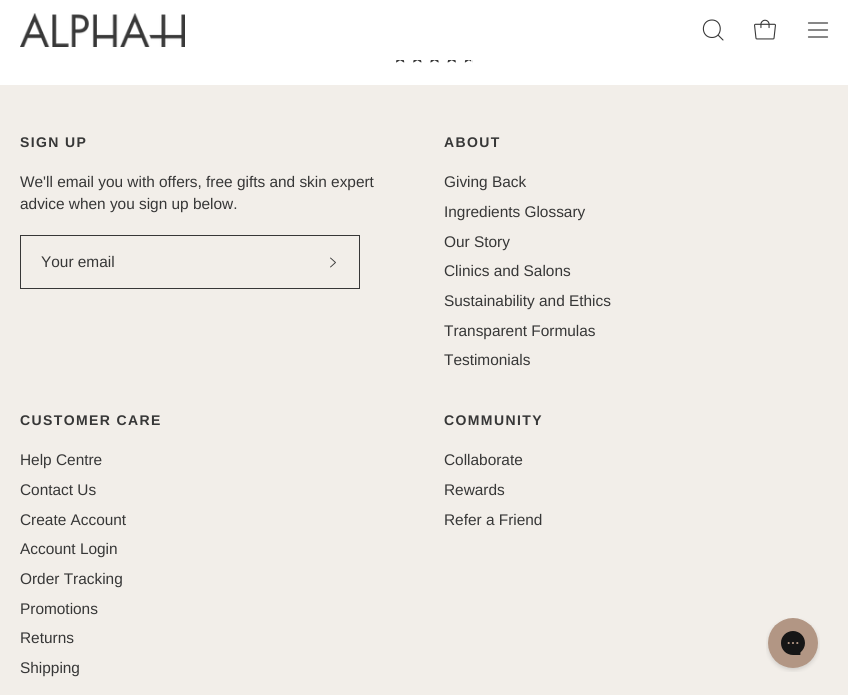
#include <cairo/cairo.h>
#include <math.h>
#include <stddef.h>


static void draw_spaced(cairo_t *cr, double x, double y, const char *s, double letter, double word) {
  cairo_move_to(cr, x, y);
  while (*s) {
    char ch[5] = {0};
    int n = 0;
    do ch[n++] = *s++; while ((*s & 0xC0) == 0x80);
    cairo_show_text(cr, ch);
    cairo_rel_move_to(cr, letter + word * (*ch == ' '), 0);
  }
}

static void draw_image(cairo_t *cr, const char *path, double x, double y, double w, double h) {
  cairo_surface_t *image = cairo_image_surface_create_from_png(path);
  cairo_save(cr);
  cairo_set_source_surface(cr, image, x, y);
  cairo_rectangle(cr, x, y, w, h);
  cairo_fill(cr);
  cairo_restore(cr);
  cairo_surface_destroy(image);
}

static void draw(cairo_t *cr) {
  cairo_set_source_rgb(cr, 1, 1, 1);
  cairo_paint(cr);
  draw_image(cr, "images/1.png", 20, 13, 165, 34);
  cairo_new_path(cr);
  cairo_move_to(cr, 712, 37.5);
  cairo_curve_to(cr, 723, 37.5, 723, 20, 712, 20);
  cairo_curve_to(cr, 700.5, 20, 700.5, 37.5, 712, 37.5);
  cairo_close_path(cr);
  cairo_move_to(cr, 718, 35);
  cairo_line_to(cr, 723, 40);
  cairo_set_source_rgb(cr, 55 / 255.0, 55 / 255.0, 55 / 255.0);
  cairo_set_line_width(cr, 1.1);
  cairo_set_line_cap(cr, CAIRO_LINE_CAP_ROUND);
  cairo_set_line_join(cr, CAIRO_LINE_JOIN_ROUND);
  cairo_stroke(cr);
  draw_image(cr, "images/2.png", 754, 19, 22, 21);
  cairo_new_path(cr);
  cairo_move_to(cr, 808.5, 30);
  cairo_line_to(cr, 827.5, 30);
  cairo_move_to(cr, 808.5, 23);
  cairo_line_to(cr, 827.5, 23);
  cairo_move_to(cr, 808.5, 37);
  cairo_line_to(cr, 827.5, 37);
  cairo_set_line_width(cr, 1.2);
  cairo_stroke(cr);
  draw_image(cr, "images/3.png", 396, 60, 77, 3);
  draw_image(cr, "images/4.png", 396, 60, 75, 3);
  cairo_set_source_rgb(cr, 242 / 255.0, 238 / 255.0, 233 / 255.0);
  cairo_rectangle(cr, 0, 85, 848, 610);
  cairo_fill(cr);
  cairo_set_source_rgb(cr, 55 / 255.0, 55 / 255.0, 55 / 255.0);
  cairo_rectangle(cr, 20, 235, 340, 1);
  cairo_fill(cr);
  cairo_rectangle(cr, 20, 288, 286, 1);
  cairo_fill(cr);
  cairo_rectangle(cr, 20, 235, 1, 54);
  cairo_fill(cr);
  cairo_rectangle(cr, 359, 235, 1, 54);
  cairo_fill(cr);
  cairo_rectangle(cr, 306, 288, 54, 1);
  cairo_fill(cr);
  cairo_new_path(cr);
  cairo_move_to(cr, 330.5, 258);
  cairo_line_to(cr, 335.5, 262.5);
  cairo_line_to(cr, 330.5, 267);
  cairo_set_line_width(cr, 0.9);
  cairo_stroke(cr);
  draw_image(cr, "images/5.png", 766, 618, 54, 54);
  cairo_select_font_face(cr, "Arimo", CAIRO_FONT_SLANT_NORMAL, CAIRO_FONT_WEIGHT_BOLD);
  cairo_set_font_size(cr, 14);
  draw_spaced(cr, 20, 147, "SIGN UP", 1.4, 0);
  cairo_select_font_face(cr, "Arimo", CAIRO_FONT_SLANT_NORMAL, CAIRO_FONT_WEIGHT_NORMAL);
  cairo_set_font_size(cr, 15.4);
  cairo_move_to(cr, 20, 187);
  cairo_show_text(cr, "We'll email you with offers, free gifts and skin expert");
  cairo_move_to(cr, 20, 209);
  cairo_show_text(cr, "advice when you sign up below.");
  cairo_move_to(cr, 41, 267);
  cairo_show_text(cr, "Your email");
  cairo_select_font_face(cr, "Arimo", CAIRO_FONT_SLANT_NORMAL, CAIRO_FONT_WEIGHT_BOLD);
  cairo_set_font_size(cr, 14);
  draw_spaced(cr, 444, 147, "ABOUT", 1.4, 0);
  cairo_select_font_face(cr, "Arimo", CAIRO_FONT_SLANT_NORMAL, CAIRO_FONT_WEIGHT_NORMAL);
  cairo_set_font_size(cr, 15.4);
  cairo_move_to(cr, 444, 187);
  cairo_show_text(cr, "Giving Back");
  cairo_move_to(cr, 444, 217);
  cairo_show_text(cr, "Ingredients Glossary");
  cairo_move_to(cr, 444, 247);
  cairo_show_text(cr, "Our Story");
  cairo_move_to(cr, 444, 276);
  cairo_show_text(cr, "Clinics and Salons");
  cairo_move_to(cr, 444, 306);
  cairo_show_text(cr, "Sustainability and Ethics");
  cairo_move_to(cr, 444, 336);
  cairo_show_text(cr, "Transparent Formulas");
  cairo_move_to(cr, 444, 365);
  cairo_show_text(cr, "Testimonials");
  cairo_select_font_face(cr, "Arimo", CAIRO_FONT_SLANT_NORMAL, CAIRO_FONT_WEIGHT_BOLD);
  cairo_set_font_size(cr, 14);
  draw_spaced(cr, 20, 425, "CUSTOMER CARE", 1.4, 0);
  cairo_select_font_face(cr, "Arimo", CAIRO_FONT_SLANT_NORMAL, CAIRO_FONT_WEIGHT_NORMAL);
  cairo_set_font_size(cr, 15.4);
  cairo_move_to(cr, 20, 465);
  cairo_show_text(cr, "Help Centre");
  cairo_move_to(cr, 20, 495);
  cairo_show_text(cr, "Contact Us");
  cairo_move_to(cr, 20, 525);
  cairo_show_text(cr, "Create Account");
  cairo_move_to(cr, 20, 554);
  cairo_show_text(cr, "Account Login");
  cairo_move_to(cr, 20, 584);
  cairo_show_text(cr, "Order Tracking");
  cairo_move_to(cr, 20, 614);
  cairo_show_text(cr, "Promotions");
  cairo_move_to(cr, 20, 643);
  cairo_show_text(cr, "Returns");
  cairo_move_to(cr, 20, 673);
  cairo_show_text(cr, "Shipping");
  cairo_select_font_face(cr, "Arimo", CAIRO_FONT_SLANT_NORMAL, CAIRO_FONT_WEIGHT_BOLD);
  cairo_set_font_size(cr, 14);
  draw_spaced(cr, 444, 425, "COMMUNITY", 1.4, 0);
  cairo_select_font_face(cr, "Arimo", CAIRO_FONT_SLANT_NORMAL, CAIRO_FONT_WEIGHT_NORMAL);
  cairo_set_font_size(cr, 15.4);
  cairo_move_to(cr, 444, 465);
  cairo_show_text(cr, "Collaborate");
  cairo_move_to(cr, 444, 495);
  cairo_show_text(cr, "Rewards");
  cairo_move_to(cr, 444, 525);
  cairo_show_text(cr, "Refer a Friend");
}

int main(void) {
  cairo_surface_t *surface = cairo_image_surface_create(CAIRO_FORMAT_RGB24, 848, 695);
  cairo_t *cr = cairo_create(surface);
  cairo_font_options_t *options = cairo_font_options_create();
  cairo_font_options_set_hint_metrics(options, CAIRO_HINT_METRICS_OFF);
  cairo_font_options_set_hint_style(options, CAIRO_HINT_STYLE_NONE);
  cairo_set_font_options(cr, options);
  cairo_set_miter_limit(cr, 4);
  draw(cr);
  cairo_surface_write_to_png(surface, "out.png");
  cairo_font_options_destroy(options);
  cairo_destroy(cr);
  cairo_surface_destroy(surface);
  return 0;
}
